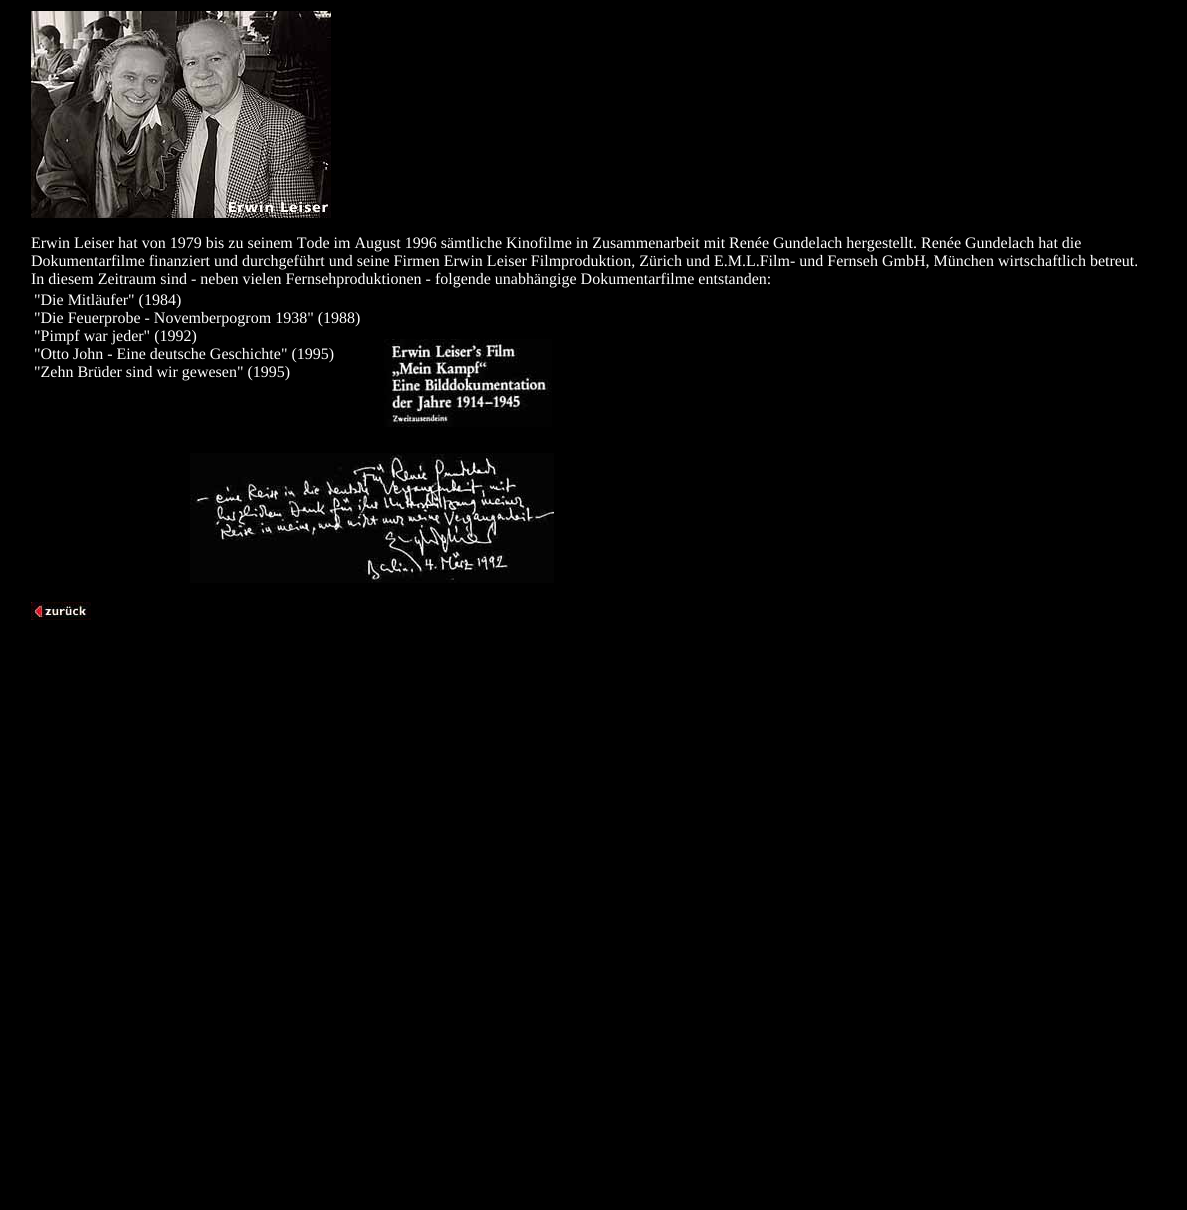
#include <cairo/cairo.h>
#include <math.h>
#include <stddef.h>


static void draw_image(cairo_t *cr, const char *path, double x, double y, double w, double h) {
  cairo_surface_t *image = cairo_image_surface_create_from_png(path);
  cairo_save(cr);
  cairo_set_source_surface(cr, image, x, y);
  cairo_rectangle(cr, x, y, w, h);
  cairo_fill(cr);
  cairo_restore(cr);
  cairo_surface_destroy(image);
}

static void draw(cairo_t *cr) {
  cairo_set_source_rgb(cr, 0, 0, 0);
  cairo_paint(cr);
  draw_image(cr, "images/1.png", 31, 11, 300, 207);
  draw_image(cr, "images/2.png", 384, 339, 168, 88);
  draw_image(cr, "images/3.png", 190, 453, 364, 130);
  draw_image(cr, "images/4.png", 31, 602, 60, 18);
  cairo_select_font_face(cr, "Liberation Serif", CAIRO_FONT_SLANT_NORMAL, CAIRO_FONT_WEIGHT_NORMAL);
  cairo_set_font_size(cr, 16);
  cairo_set_source_rgb(cr, 1, 1, 1);
  cairo_move_to(cr, 31, 248);
  cairo_show_text(cr, "Erwin Leiser hat von 1979 bis zu seinem Tode im August 1996 sämtliche Kinofilme in Zusammenarbeit mit Renée Gundelach hergestellt. Renée Gundelach hat die");
  cairo_move_to(cr, 31, 266);
  cairo_show_text(cr, "Dokumentarfilme finanziert und durchgeführt und seine Firmen Erwin Leiser Filmproduktion, Zürich und E.M.L.Film- und Fernseh GmbH, München wirtschaftlich betreut.");
  cairo_move_to(cr, 31, 284);
  cairo_show_text(cr, "In diesem Zeitraum sind - neben vielen Fernsehproduktionen - folgende unabhängige Dokumentarfilme entstanden:");
  cairo_move_to(cr, 34, 305);
  cairo_show_text(cr, "\"Die Mitläufer\" (1984)");
  cairo_move_to(cr, 34, 323);
  cairo_show_text(cr, "\"Die Feuerprobe - Novemberpogrom 1938\" (1988)");
  cairo_move_to(cr, 34, 341);
  cairo_show_text(cr, "\"Pimpf war jeder\" (1992)");
  cairo_move_to(cr, 34, 359);
  cairo_show_text(cr, "\"Otto John - Eine deutsche Geschichte\" (1995)");
  cairo_move_to(cr, 34, 377);
  cairo_show_text(cr, "\"Zehn Brüder sind wir gewesen\" (1995)");
}

int main(void) {
  cairo_surface_t *surface = cairo_image_surface_create(CAIRO_FORMAT_RGB24, 1187, 1210);
  cairo_t *cr = cairo_create(surface);
  cairo_font_options_t *options = cairo_font_options_create();
  cairo_font_options_set_hint_metrics(options, CAIRO_HINT_METRICS_OFF);
  cairo_font_options_set_hint_style(options, CAIRO_HINT_STYLE_NONE);
  cairo_set_font_options(cr, options);
  cairo_set_miter_limit(cr, 4);
  draw(cr);
  cairo_surface_write_to_png(surface, "out.png");
  cairo_font_options_destroy(options);
  cairo_destroy(cr);
  cairo_surface_destroy(surface);
  return 0;
}
